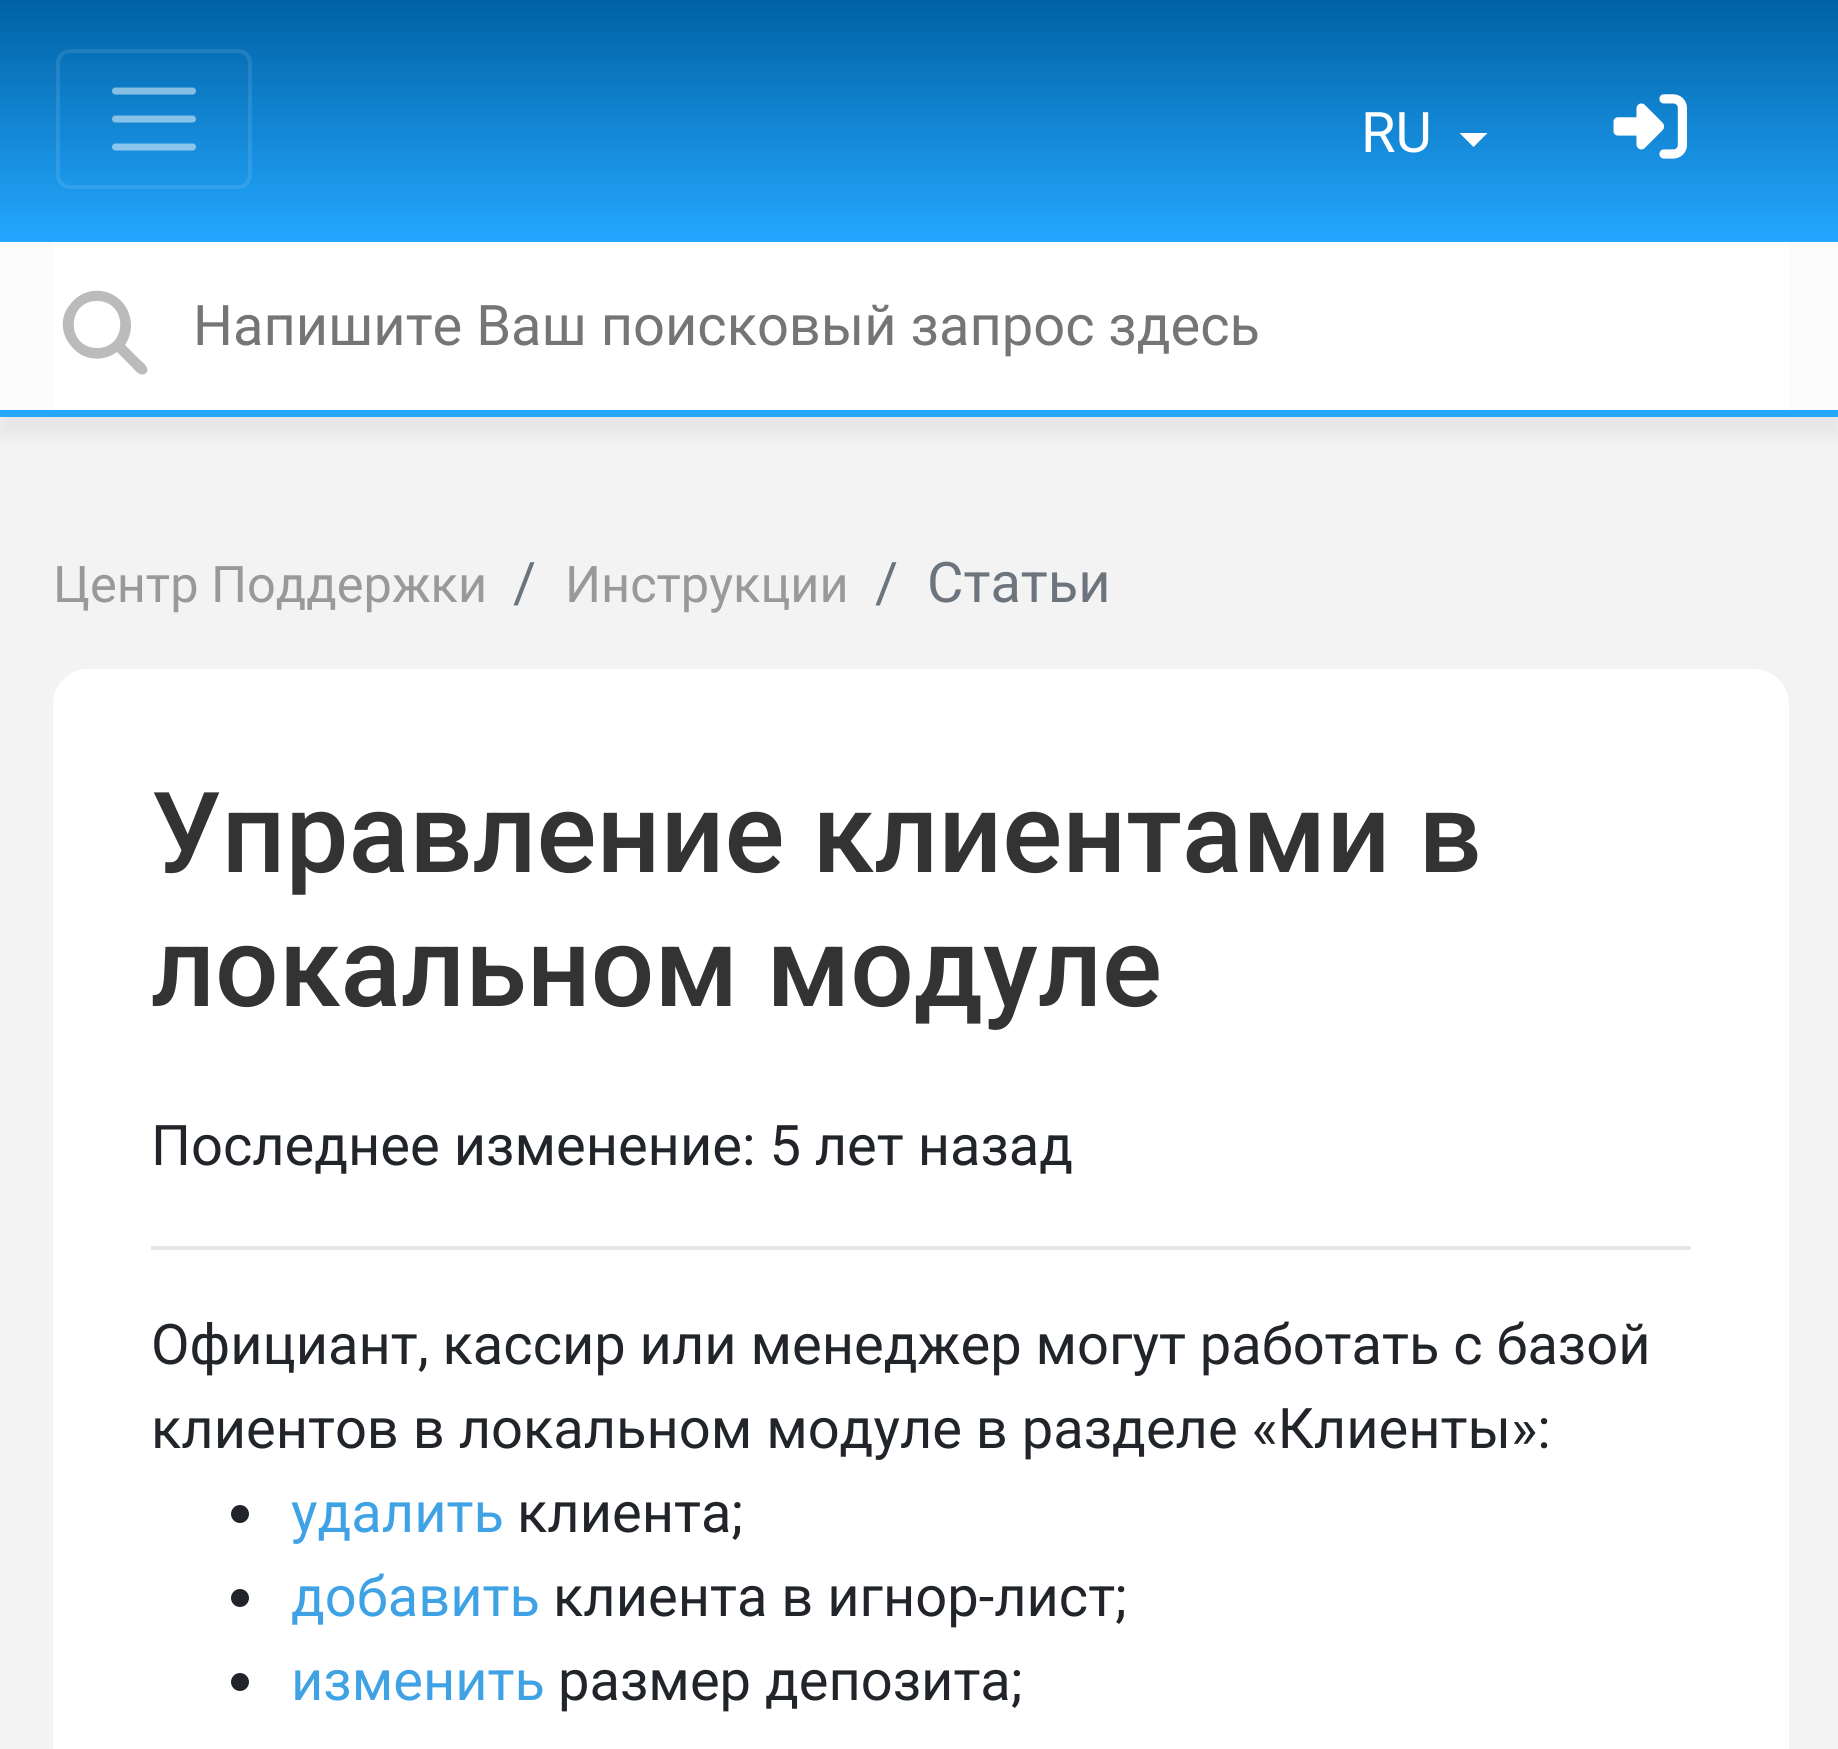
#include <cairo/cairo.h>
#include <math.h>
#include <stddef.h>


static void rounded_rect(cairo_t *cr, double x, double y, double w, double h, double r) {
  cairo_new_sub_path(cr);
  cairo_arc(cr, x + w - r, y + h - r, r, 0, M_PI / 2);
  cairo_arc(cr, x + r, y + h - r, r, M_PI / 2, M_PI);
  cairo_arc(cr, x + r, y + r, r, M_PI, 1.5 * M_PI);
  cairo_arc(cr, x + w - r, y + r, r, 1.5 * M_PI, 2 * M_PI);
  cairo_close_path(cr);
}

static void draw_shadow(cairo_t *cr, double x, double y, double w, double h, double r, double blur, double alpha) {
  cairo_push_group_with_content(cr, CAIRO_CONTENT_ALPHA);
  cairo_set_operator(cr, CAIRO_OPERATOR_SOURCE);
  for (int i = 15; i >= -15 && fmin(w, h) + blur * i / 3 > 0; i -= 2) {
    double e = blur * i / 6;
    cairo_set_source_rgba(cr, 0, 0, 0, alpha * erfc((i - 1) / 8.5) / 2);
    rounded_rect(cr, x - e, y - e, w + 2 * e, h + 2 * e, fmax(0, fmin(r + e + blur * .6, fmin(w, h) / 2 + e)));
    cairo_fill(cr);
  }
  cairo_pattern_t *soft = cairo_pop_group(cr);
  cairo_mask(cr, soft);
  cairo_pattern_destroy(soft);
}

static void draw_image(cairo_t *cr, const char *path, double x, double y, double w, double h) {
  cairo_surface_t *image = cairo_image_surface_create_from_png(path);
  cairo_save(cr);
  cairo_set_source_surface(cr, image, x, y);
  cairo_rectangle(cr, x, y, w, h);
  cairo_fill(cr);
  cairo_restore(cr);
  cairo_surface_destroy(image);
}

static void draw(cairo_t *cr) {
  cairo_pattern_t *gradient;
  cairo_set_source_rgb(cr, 243 / 255.0, 243 / 255.0, 243 / 255.0);
  cairo_paint(cr);
  gradient = cairo_pattern_create_linear(921, 0, 921, 242);
  cairo_pattern_add_color_stop_rgba(gradient, 0, 0, 98 / 255.0, 164 / 255.0, 1);
  cairo_pattern_add_color_stop_rgba(gradient, 1, 36 / 255.0, 167 / 255.0, 1, 1);
  cairo_set_source(cr, gradient);
  cairo_pattern_destroy(gradient);
  cairo_rectangle(cr, 0, 0, 1838, 242);
  cairo_fill(cr);
  rounded_rect(cr, 58, 51, 192, 136, 12);
  cairo_set_source_rgba(cr, 1, 1, 1, 0.1);
  cairo_set_line_width(cr, 4);
  cairo_stroke(cr);
  cairo_new_path(cr);
  cairo_move_to(cr, 115.5, 91);
  cairo_line_to(cr, 192.5, 91);
  cairo_move_to(cr, 115.5, 119);
  cairo_line_to(cr, 192.5, 119);
  cairo_move_to(cr, 115.5, 147);
  cairo_line_to(cr, 192.5, 147);
  cairo_set_source_rgba(cr, 1, 1, 1, 0.5);
  cairo_set_line_width(cr, 7);
  cairo_set_line_cap(cr, CAIRO_LINE_CAP_ROUND);
  cairo_stroke(cr);
  cairo_set_source_rgb(cr, 1, 1, 1);
  cairo_new_path(cr);
  cairo_move_to(cr, 1459.5, 133);
  cairo_line_to(cr, 1487.5, 133);
  cairo_line_to(cr, 1473.5, 147);
  cairo_close_path(cr);
  cairo_fill(cr);
  draw_image(cr, "images/1.png", 1613, 94, 74, 65);
  cairo_set_source_rgb(cr, 100 / 255.0, 100 / 255.0, 100 / 255.0);
  draw_shadow(cr, 0, 259, 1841, 175, 0, 9, 0.1);
  cairo_set_source_rgb(cr, 252 / 255.0, 252 / 255.0, 252 / 255.0);
  cairo_rectangle(cr, 0, 242, 1838, 168);
  cairo_fill(cr);
  cairo_set_source_rgb(cr, 36 / 255.0, 167 / 255.0, 1);
  cairo_rectangle(cr, 0, 410, 1838, 7);
  cairo_fill(cr);
  cairo_set_source_rgb(cr, 1, 1, 1);
  cairo_rectangle(cr, 53, 242, 1736, 168);
  cairo_fill(cr);
  cairo_set_source_rgb(cr, 187 / 255.0, 187 / 255.0, 187 / 255.0);
  cairo_new_path(cr);
  cairo_move_to(cr, 131, 325);
  cairo_curve_to(cr, 131, 332, 129, 339, 125, 345);
  cairo_line_to(cr, 139, 359);
  cairo_curve_to(cr, 141, 361, 151, 368, 146, 373);
  cairo_curve_to(cr, 140, 378, 134, 369, 131, 366);
  cairo_line_to(cr, 117, 352);
  cairo_curve_to(cr, 105, 361, 87, 361, 76, 351);
  cairo_curve_to(cr, 69, 345, 64, 337, 63, 328);
  cairo_curve_to(cr, 62, 320, 64, 312, 69, 306);
  cairo_curve_to(cr, 88, 278, 130, 291, 131, 325);
  cairo_close_path(cr);
  cairo_move_to(cr, 97, 348);
  cairo_curve_to(cr, 128, 348, 128, 301, 97, 301);
  cairo_curve_to(cr, 66, 301, 66, 348, 97, 348);
  cairo_close_path(cr);
  cairo_fill(cr);
  cairo_set_source_rgb(cr, 1, 1, 1);
  rounded_rect(cr, 53, 669, 1736, 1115, 35);
  cairo_fill(cr);
  cairo_set_source_rgb(cr, 230 / 255.0, 230 / 255.0, 230 / 255.0);
  cairo_rectangle(cr, 151, 1246, 1540, 4);
  cairo_fill(cr);
  cairo_set_source_rgb(cr, 33 / 255.0, 37 / 255.0, 41 / 255.0);
  cairo_arc(cr, 240, 1514, 9, 0, 2 * M_PI);
  cairo_fill(cr);
  cairo_arc(cr, 240, 1598, 9, 0, 2 * M_PI);
  cairo_fill(cr);
  cairo_arc(cr, 240, 1682, 9, 0, 2 * M_PI);
  cairo_fill(cr);
  cairo_select_font_face(cr, "Roboto", CAIRO_FONT_SLANT_NORMAL, CAIRO_FONT_WEIGHT_NORMAL);
  cairo_set_font_size(cr, 56);
  cairo_set_source_rgb(cr, 1, 1, 1);
  cairo_move_to(cr, 1361, 152);
  cairo_show_text(cr, "RU");
  cairo_set_source_rgb(cr, 117 / 255.0, 117 / 255.0, 117 / 255.0);
  cairo_move_to(cr, 193, 345);
  cairo_show_text(cr, "Напишите Ваш поисковый запрос здесь");
  cairo_set_font_size(cr, 50.5);
  cairo_set_source_rgb(cr, 153 / 255.0, 153 / 255.0, 153 / 255.0);
  cairo_move_to(cr, 53, 602);
  cairo_show_text(cr, "Центр Поддержки");
  cairo_set_font_size(cr, 56);
  cairo_set_source_rgb(cr, 108 / 255.0, 117 / 255.0, 125 / 255.0);
  cairo_move_to(cr, 513, 602);
  cairo_show_text(cr, "/");
  cairo_set_font_size(cr, 50.5);
  cairo_set_source_rgb(cr, 153 / 255.0, 153 / 255.0, 153 / 255.0);
  cairo_move_to(cr, 565, 602);
  cairo_show_text(cr, "Инструкции");
  cairo_set_font_size(cr, 56);
  cairo_set_source_rgb(cr, 108 / 255.0, 117 / 255.0, 125 / 255.0);
  cairo_move_to(cr, 875, 602);
  cairo_show_text(cr, "/");
  cairo_move_to(cr, 927, 602);
  cairo_show_text(cr, "Статьи");
  cairo_select_font_face(cr, "Roboto Medium", CAIRO_FONT_SLANT_NORMAL, CAIRO_FONT_WEIGHT_NORMAL);
  cairo_set_font_size(cr, 112);
  cairo_set_source_rgb(cr, 51 / 255.0, 51 / 255.0, 51 / 255.0);
  cairo_move_to(cr, 151, 872);
  cairo_show_text(cr, "Управление клиентами в");
  cairo_move_to(cr, 151, 1006);
  cairo_show_text(cr, "локальном модуле");
  cairo_select_font_face(cr, "Roboto", CAIRO_FONT_SLANT_NORMAL, CAIRO_FONT_WEIGHT_NORMAL);
  cairo_set_font_size(cr, 56);
  cairo_set_source_rgb(cr, 33 / 255.0, 37 / 255.0, 41 / 255.0);
  cairo_move_to(cr, 151, 1165);
  cairo_show_text(cr, "Последнее изменение: 5 лет назад");
  cairo_move_to(cr, 151, 1364);
  cairo_show_text(cr, "Официант, кассир или менеджер могут работать с базой");
  cairo_move_to(cr, 151, 1448);
  cairo_show_text(cr, "клиентов в локальном модуле в разделе «Клиенты»:");
  cairo_set_source_rgb(cr, 63 / 255.0, 162 / 255.0, 228 / 255.0);
  cairo_move_to(cr, 291, 1532);
  cairo_show_text(cr, "удалить");
  cairo_set_source_rgb(cr, 33 / 255.0, 37 / 255.0, 41 / 255.0);
  cairo_move_to(cr, 517, 1532);
  cairo_show_text(cr, "клиента;");
  cairo_set_source_rgb(cr, 63 / 255.0, 162 / 255.0, 228 / 255.0);
  cairo_move_to(cr, 291, 1616);
  cairo_show_text(cr, "добавить");
  cairo_set_source_rgb(cr, 33 / 255.0, 37 / 255.0, 41 / 255.0);
  cairo_move_to(cr, 553, 1616);
  cairo_show_text(cr, "клиента в игнор-лист;");
  cairo_set_source_rgb(cr, 63 / 255.0, 162 / 255.0, 228 / 255.0);
  cairo_move_to(cr, 291, 1700);
  cairo_show_text(cr, "изменить");
  cairo_set_source_rgb(cr, 33 / 255.0, 37 / 255.0, 41 / 255.0);
  cairo_move_to(cr, 558, 1700);
  cairo_show_text(cr, "размер депозита;");
}

int main(void) {
  cairo_surface_t *surface = cairo_image_surface_create(CAIRO_FORMAT_RGB24, 1838, 1749);
  cairo_t *cr = cairo_create(surface);
  cairo_font_options_t *options = cairo_font_options_create();
  cairo_font_options_set_hint_metrics(options, CAIRO_HINT_METRICS_OFF);
  cairo_font_options_set_hint_style(options, CAIRO_HINT_STYLE_NONE);
  cairo_set_font_options(cr, options);
  cairo_set_miter_limit(cr, 4);
  draw(cr);
  cairo_surface_write_to_png(surface, "out.png");
  cairo_font_options_destroy(options);
  cairo_destroy(cr);
  cairo_surface_destroy(surface);
  return 0;
}
